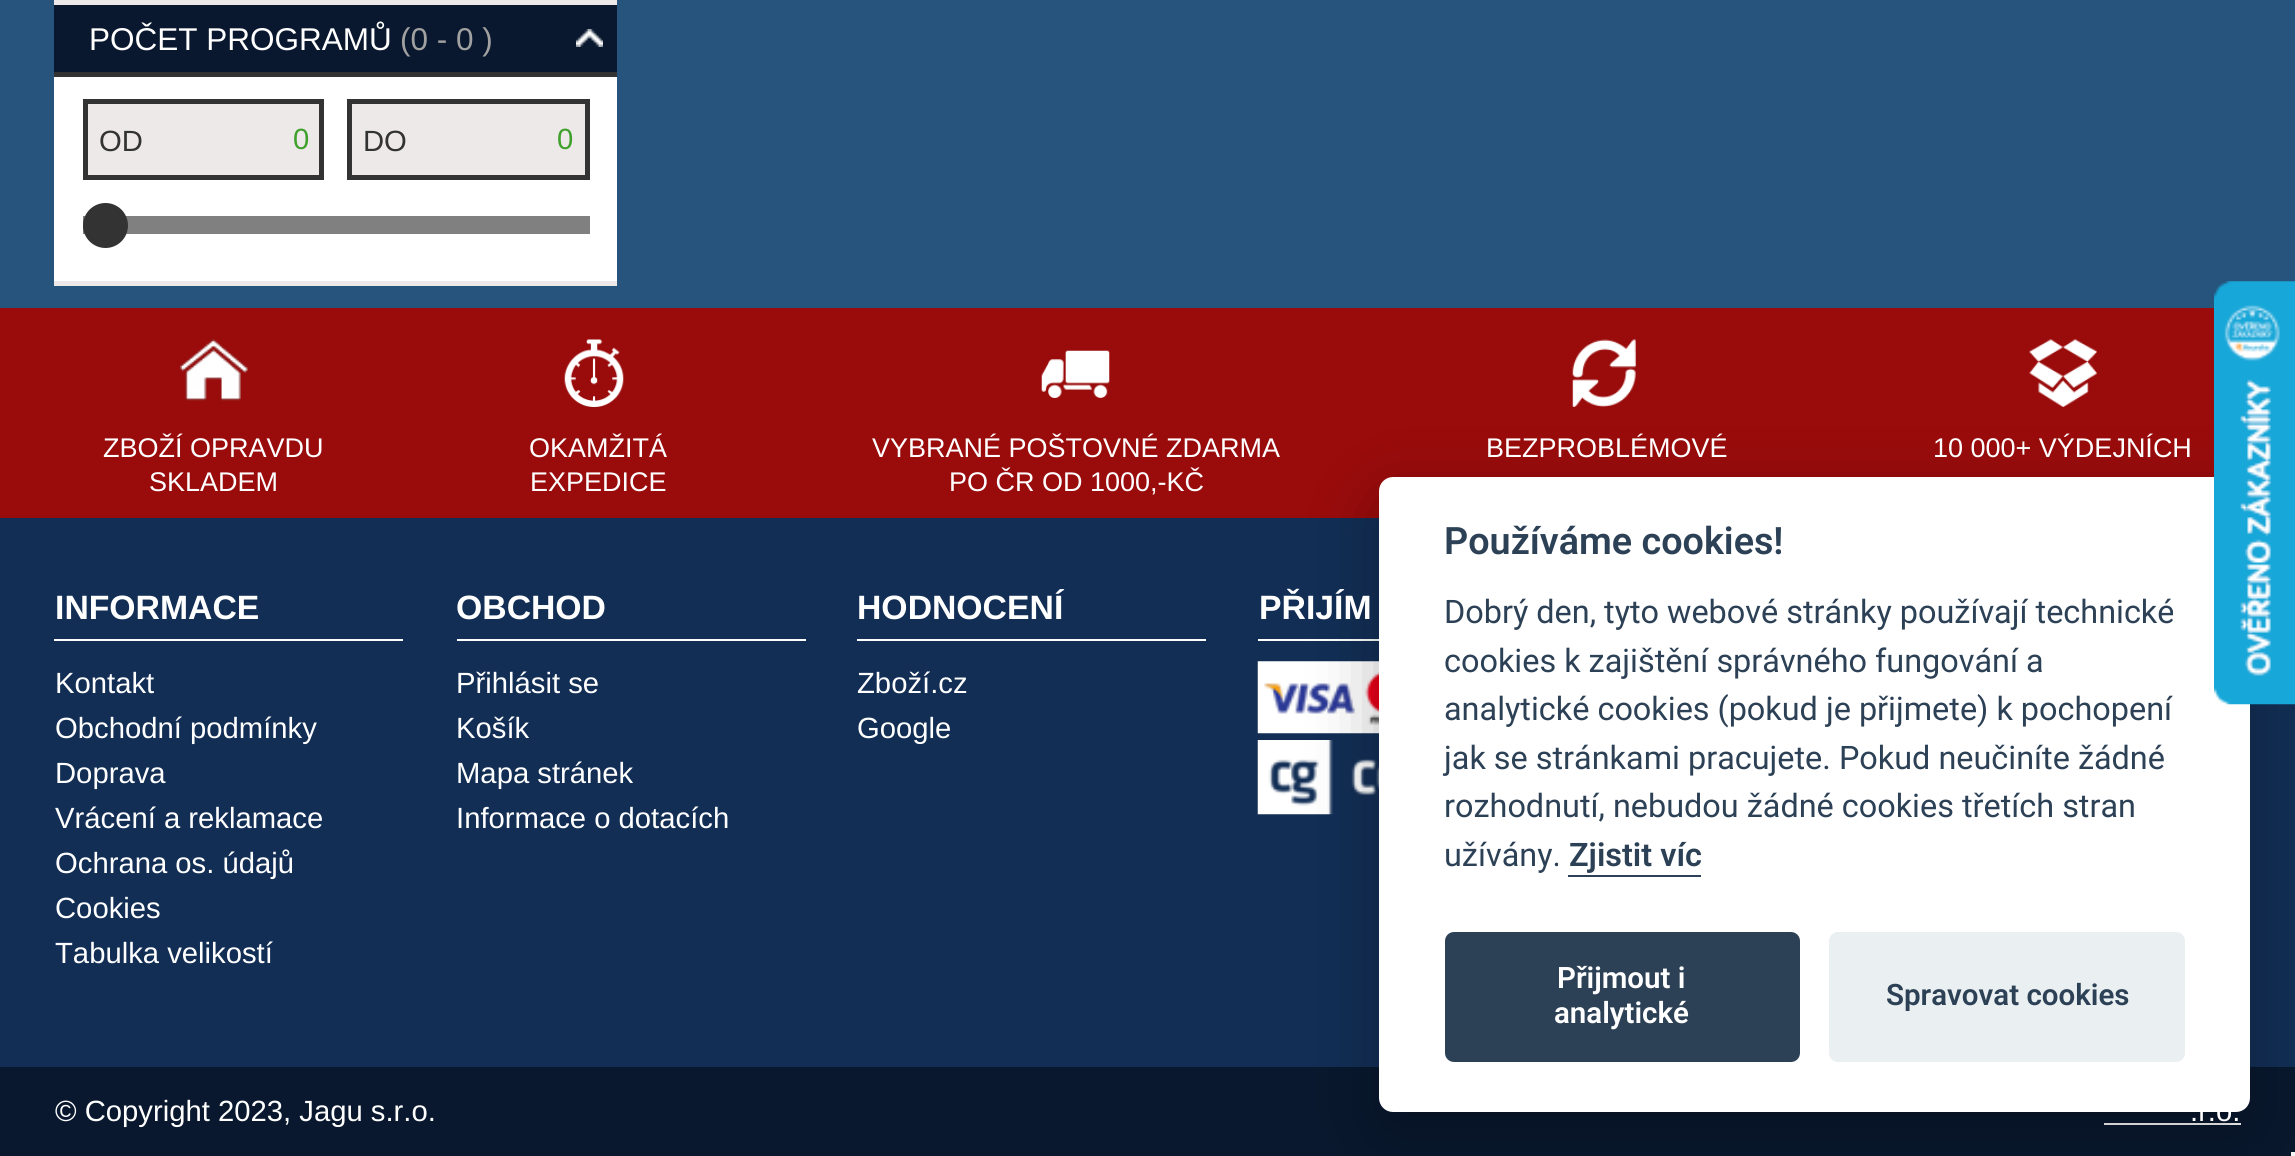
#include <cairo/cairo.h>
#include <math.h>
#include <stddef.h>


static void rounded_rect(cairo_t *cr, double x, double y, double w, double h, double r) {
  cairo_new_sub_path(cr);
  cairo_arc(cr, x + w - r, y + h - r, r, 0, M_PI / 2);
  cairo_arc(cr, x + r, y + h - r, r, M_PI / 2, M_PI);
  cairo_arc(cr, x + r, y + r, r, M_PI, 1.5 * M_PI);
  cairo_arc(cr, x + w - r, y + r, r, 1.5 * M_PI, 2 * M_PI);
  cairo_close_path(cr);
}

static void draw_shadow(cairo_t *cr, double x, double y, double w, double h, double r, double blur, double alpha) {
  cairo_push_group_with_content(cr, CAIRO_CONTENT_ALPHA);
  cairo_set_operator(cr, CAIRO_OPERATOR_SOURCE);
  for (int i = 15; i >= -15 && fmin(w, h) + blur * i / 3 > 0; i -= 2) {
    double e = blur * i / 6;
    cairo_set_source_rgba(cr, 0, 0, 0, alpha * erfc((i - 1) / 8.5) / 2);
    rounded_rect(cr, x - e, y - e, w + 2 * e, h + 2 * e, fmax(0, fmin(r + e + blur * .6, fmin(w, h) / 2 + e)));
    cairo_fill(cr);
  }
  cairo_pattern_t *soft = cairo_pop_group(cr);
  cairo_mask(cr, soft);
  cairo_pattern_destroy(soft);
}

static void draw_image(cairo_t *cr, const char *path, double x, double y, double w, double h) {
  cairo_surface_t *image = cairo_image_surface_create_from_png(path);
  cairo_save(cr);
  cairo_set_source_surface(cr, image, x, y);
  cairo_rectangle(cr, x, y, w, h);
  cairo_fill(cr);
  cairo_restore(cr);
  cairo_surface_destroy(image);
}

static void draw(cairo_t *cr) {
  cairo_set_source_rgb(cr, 154 / 255.0, 11 / 255.0, 11 / 255.0);
  cairo_paint(cr);
  cairo_set_source_rgb(cr, 38 / 255.0, 84 / 255.0, 124 / 255.0);
  cairo_rectangle(cr, 0, 0, 2295, 308);
  cairo_fill(cr);
  cairo_set_source_rgb(cr, 238 / 255.0, 233 / 255.0, 233 / 255.0);
  cairo_rectangle(cr, 54, 0, 563, 5);
  cairo_fill(cr);
  cairo_set_source_rgb(cr, 9 / 255.0, 24 / 255.0, 46 / 255.0);
  cairo_rectangle(cr, 54, 5, 563, 67);
  cairo_fill(cr);
  cairo_set_source_rgb(cr, 238 / 255.0, 233 / 255.0, 233 / 255.0);
  cairo_rectangle(cr, 54, 281, 563, 5);
  cairo_fill(cr);
  draw_image(cr, "images/1.png", 576, 29, 27, 18);
  cairo_set_source_rgb(cr, 1, 1, 1);
  cairo_rectangle(cr, 54, 77, 563, 204);
  cairo_fill(cr);
  cairo_set_source_rgb(cr, 51 / 255.0, 51 / 255.0, 51 / 255.0);
  cairo_rectangle(cr, 54, 72, 563, 5);
  cairo_fill(cr);
  cairo_set_source_rgb(cr, 238 / 255.0, 233 / 255.0, 233 / 255.0);
  cairo_rectangle(cr, 85.5, 101.5, 236, 76);
  cairo_fill_preserve(cr);
  cairo_set_source_rgb(cr, 51 / 255.0, 51 / 255.0, 51 / 255.0);
  cairo_set_line_width(cr, 5);
  cairo_stroke(cr);
  cairo_set_source_rgb(cr, 238 / 255.0, 233 / 255.0, 233 / 255.0);
  cairo_rectangle(cr, 349.5, 101.5, 238, 76);
  cairo_fill_preserve(cr);
  cairo_set_source_rgb(cr, 51 / 255.0, 51 / 255.0, 51 / 255.0);
  cairo_stroke(cr);
  cairo_set_source_rgb(cr, 128 / 255.0, 128 / 255.0, 128 / 255.0);
  cairo_rectangle(cr, 83, 216, 507, 18);
  cairo_fill(cr);
  cairo_set_source_rgb(cr, 51 / 255.0, 51 / 255.0, 51 / 255.0);
  cairo_arc(cr, 105.5, 225.5, 22.5, 0, 2 * M_PI);
  cairo_fill(cr);
  draw_image(cr, "images/2.png", 180, 339, 68, 62);
  draw_image(cr, "images/3.png", 564, 339, 60, 68);
  draw_image(cr, "images/4.png", 1041, 350, 69, 48);
  draw_image(cr, "images/5.png", 1572, 339, 64, 68);
  draw_image(cr, "images/6.png", 2029, 339, 68, 68);
  cairo_set_source_rgb(cr, 18 / 255.0, 46 / 255.0, 85 / 255.0);
  cairo_rectangle(cr, 0, 518, 2295, 549);
  cairo_fill(cr);
  cairo_set_source_rgb(cr, 1, 1, 1);
  cairo_rectangle(cr, 1258, 639, 121, 2);
  cairo_fill(cr);
  draw_image(cr, "images/8.png", 1257, 661, 122, 73);
  draw_image(cr, "images/9.png", 1257, 740, 122, 75);
  cairo_set_source_rgb(cr, 9 / 255.0, 24 / 255.0, 46 / 255.0);
  cairo_rectangle(cr, 0, 1067, 2295, 89);
  cairo_fill(cr);
  cairo_set_source_rgb(cr, 1, 1, 1);
  cairo_rectangle(cr, 2104, 1123, 137, 2);
  cairo_fill(cr);
  cairo_set_source_rgb(cr, 2 / 255.0, 2 / 255.0, 3 / 255.0);
  draw_shadow(cr, 1379, 500, 871, 634, 14, 34, 0.28);
  cairo_set_source_rgb(cr, 1, 1, 1);
  rounded_rect(cr, 1379, 477, 871, 635, 14);
  cairo_fill(cr);
  draw_image(cr, "images/7.png", 2214, 281, 81, 424);
  cairo_set_source_rgb(cr, 45 / 255.0, 65 / 255.0, 86 / 255.0);
  cairo_rectangle(cr, 1568, 875, 133, 2);
  cairo_fill(cr);
  rounded_rect(cr, 1445, 932, 355, 130, 9);
  cairo_fill(cr);
  cairo_set_source_rgb(cr, 234 / 255.0, 239 / 255.0, 242 / 255.0);
  rounded_rect(cr, 1829, 932, 356, 130, 9);
  cairo_fill(cr);
  cairo_set_source_rgb(cr, 1, 1, 1);
  cairo_rectangle(cr, 54, 639, 349, 2);
  cairo_fill(cr);
  cairo_rectangle(cr, 457, 639, 349, 2);
  cairo_fill(cr);
  cairo_rectangle(cr, 857, 639, 349, 2);
  cairo_fill(cr);
  cairo_set_source_rgb(cr, 245 / 255.0, 245 / 255.0, 245 / 255.0);
  cairo_rectangle(cr, 2291, 1152, 4, 4);
  cairo_fill(cr);
  cairo_select_font_face(cr, "Liberation Sans", CAIRO_FONT_SLANT_NORMAL, CAIRO_FONT_WEIGHT_NORMAL);
  cairo_set_font_size(cr, 31.5);
  cairo_set_source_rgb(cr, 1, 1, 1);
  cairo_move_to(cr, 89, 50);
  cairo_show_text(cr, "POČET PROGRAMŮ");
  cairo_set_source_rgb(cr, 161 / 255.0, 161 / 255.0, 161 / 255.0);
  cairo_move_to(cr, 400, 50);
  cairo_show_text(cr, "(0 - 0 )");
  cairo_set_font_size(cr, 29.25);
  cairo_set_source_rgb(cr, 51 / 255.0, 51 / 255.0, 51 / 255.0);
  cairo_move_to(cr, 99, 151);
  cairo_show_text(cr, "OD");
  cairo_set_source_rgb(cr, 63 / 255.0, 160 / 255.0, 44 / 255.0);
  cairo_move_to(cr, 293, 149);
  cairo_show_text(cr, "0");
  cairo_set_source_rgb(cr, 51 / 255.0, 51 / 255.0, 51 / 255.0);
  cairo_move_to(cr, 363, 151);
  cairo_show_text(cr, "DO");
  cairo_set_source_rgb(cr, 63 / 255.0, 160 / 255.0, 44 / 255.0);
  cairo_move_to(cr, 557, 149);
  cairo_show_text(cr, "0");
  cairo_set_font_size(cr, 27);
  cairo_set_source_rgb(cr, 1, 1, 1);
  cairo_move_to(cr, 103, 457);
  cairo_show_text(cr, "ZBOŽÍ OPRAVDU");
  cairo_move_to(cr, 149, 491);
  cairo_show_text(cr, "SKLADEM");
  cairo_move_to(cr, 529, 457);
  cairo_show_text(cr, "OKAMŽITÁ");
  cairo_move_to(cr, 530, 491);
  cairo_show_text(cr, "EXPEDICE");
  cairo_move_to(cr, 872, 457);
  cairo_show_text(cr, "VYBRANÉ POŠTOVNÉ ZDARMA");
  cairo_move_to(cr, 949, 491);
  cairo_show_text(cr, "PO ČR OD 1000,-KČ");
  cairo_move_to(cr, 1486, 457);
  cairo_show_text(cr, "BEZPROBLÉMOVÉ");
  cairo_move_to(cr, 1933, 457);
  cairo_show_text(cr, "10 000+ VÝDEJNÍCH");
  cairo_select_font_face(cr, "Roboto SemiBold", CAIRO_FONT_SLANT_NORMAL, CAIRO_FONT_WEIGHT_NORMAL);
  cairo_set_font_size(cr, 37.75);
  cairo_set_source_rgb(cr, 45 / 255.0, 65 / 255.0, 86 / 255.0);
  cairo_move_to(cr, 1444, 554);
  cairo_show_text(cr, "Používáme cookies!");
  cairo_select_font_face(cr, "Roboto", CAIRO_FONT_SLANT_NORMAL, CAIRO_FONT_WEIGHT_NORMAL);
  cairo_set_font_size(cr, 32.4);
  cairo_move_to(cr, 1444, 623);
  cairo_show_text(cr, "Dobrý den, tyto webové stránky používají technické");
  cairo_move_to(cr, 1444, 672);
  cairo_show_text(cr, "cookies k zajištění správného fungování a");
  cairo_move_to(cr, 1444, 720);
  cairo_show_text(cr, "analytické cookies (pokud je přijmete) k pochopení");
  cairo_move_to(cr, 1444, 769);
  cairo_show_text(cr, "jak se stránkami pracujete. Pokud neučiníte žádné");
  cairo_move_to(cr, 1444, 817);
  cairo_show_text(cr, "rozhodnutí, nebudou žádné cookies třetích stran");
  cairo_move_to(cr, 1444, 866);
  cairo_show_text(cr, "užívány.");
  cairo_select_font_face(cr, "Roboto SemiBold", CAIRO_FONT_SLANT_NORMAL, CAIRO_FONT_WEIGHT_NORMAL);
  cairo_move_to(cr, 1569, 866);
  cairo_show_text(cr, "Zjistit víc");
  cairo_set_font_size(cr, 29.5);
  cairo_set_source_rgb(cr, 1, 1, 1);
  cairo_move_to(cr, 1557, 988);
  cairo_show_text(cr, "Přijmout i");
  cairo_move_to(cr, 1554, 1023);
  cairo_show_text(cr, "analytické");
  cairo_set_source_rgb(cr, 45 / 255.0, 65 / 255.0, 86 / 255.0);
  cairo_move_to(cr, 1886, 1005);
  cairo_show_text(cr, "Spravovat cookies");
  cairo_select_font_face(cr, "Liberation Sans", CAIRO_FONT_SLANT_NORMAL, CAIRO_FONT_WEIGHT_BOLD);
  cairo_set_font_size(cr, 33.75);
  cairo_set_source_rgb(cr, 1, 1, 1);
  cairo_move_to(cr, 55, 619);
  cairo_show_text(cr, "INFORMACE");
  cairo_select_font_face(cr, "Liberation Sans", CAIRO_FONT_SLANT_NORMAL, CAIRO_FONT_WEIGHT_NORMAL);
  cairo_set_font_size(cr, 29.25);
  cairo_move_to(cr, 55, 693);
  cairo_show_text(cr, "Kontakt");
  cairo_move_to(cr, 55, 738);
  cairo_show_text(cr, "Obchodní podmínky");
  cairo_move_to(cr, 55, 783);
  cairo_show_text(cr, "Doprava");
  cairo_move_to(cr, 55, 828);
  cairo_show_text(cr, "Vrácení a reklamace");
  cairo_move_to(cr, 55, 873);
  cairo_show_text(cr, "Ochrana os. údajů");
  cairo_move_to(cr, 55, 918);
  cairo_show_text(cr, "Cookies");
  cairo_move_to(cr, 55, 963);
  cairo_show_text(cr, "Tabulka velikostí");
  cairo_select_font_face(cr, "Liberation Sans", CAIRO_FONT_SLANT_NORMAL, CAIRO_FONT_WEIGHT_BOLD);
  cairo_set_font_size(cr, 33.75);
  cairo_move_to(cr, 456, 619);
  cairo_show_text(cr, "OBCHOD");
  cairo_select_font_face(cr, "Liberation Sans", CAIRO_FONT_SLANT_NORMAL, CAIRO_FONT_WEIGHT_NORMAL);
  cairo_set_font_size(cr, 29.25);
  cairo_move_to(cr, 456, 693);
  cairo_show_text(cr, "Přihlásit se");
  cairo_move_to(cr, 456, 738);
  cairo_show_text(cr, "Košík");
  cairo_move_to(cr, 456, 783);
  cairo_show_text(cr, "Mapa stránek");
  cairo_move_to(cr, 456, 828);
  cairo_show_text(cr, "Informace o dotacích");
  cairo_select_font_face(cr, "Liberation Sans", CAIRO_FONT_SLANT_NORMAL, CAIRO_FONT_WEIGHT_BOLD);
  cairo_set_font_size(cr, 33.75);
  cairo_move_to(cr, 857, 619);
  cairo_show_text(cr, "HODNOCENÍ");
  cairo_select_font_face(cr, "Liberation Sans", CAIRO_FONT_SLANT_NORMAL, CAIRO_FONT_WEIGHT_NORMAL);
  cairo_set_font_size(cr, 29.25);
  cairo_move_to(cr, 857, 693);
  cairo_show_text(cr, "Zboží.cz");
  cairo_move_to(cr, 857, 738);
  cairo_show_text(cr, "Google");
  cairo_select_font_face(cr, "Liberation Sans", CAIRO_FONT_SLANT_NORMAL, CAIRO_FONT_WEIGHT_BOLD);
  cairo_set_font_size(cr, 33.75);
  cairo_move_to(cr, 1259, 619);
  cairo_show_text(cr, "PŘIJÍM");
  cairo_select_font_face(cr, "Liberation Sans", CAIRO_FONT_SLANT_NORMAL, CAIRO_FONT_WEIGHT_NORMAL);
  cairo_set_font_size(cr, 29.25);
  cairo_move_to(cr, 55, 1121);
  cairo_show_text(cr, "© Copyright 2023, Jagu s.r.o.");
  cairo_move_to(cr, 2190, 1121);
  cairo_show_text(cr, ".r.o.");
}

int main(void) {
  cairo_surface_t *surface = cairo_image_surface_create(CAIRO_FORMAT_RGB24, 2295, 1156);
  cairo_t *cr = cairo_create(surface);
  cairo_font_options_t *options = cairo_font_options_create();
  cairo_font_options_set_hint_metrics(options, CAIRO_HINT_METRICS_OFF);
  cairo_font_options_set_hint_style(options, CAIRO_HINT_STYLE_NONE);
  cairo_set_font_options(cr, options);
  cairo_set_miter_limit(cr, 4);
  draw(cr);
  cairo_surface_write_to_png(surface, "out.png");
  cairo_font_options_destroy(options);
  cairo_destroy(cr);
  cairo_surface_destroy(surface);
  return 0;
}
